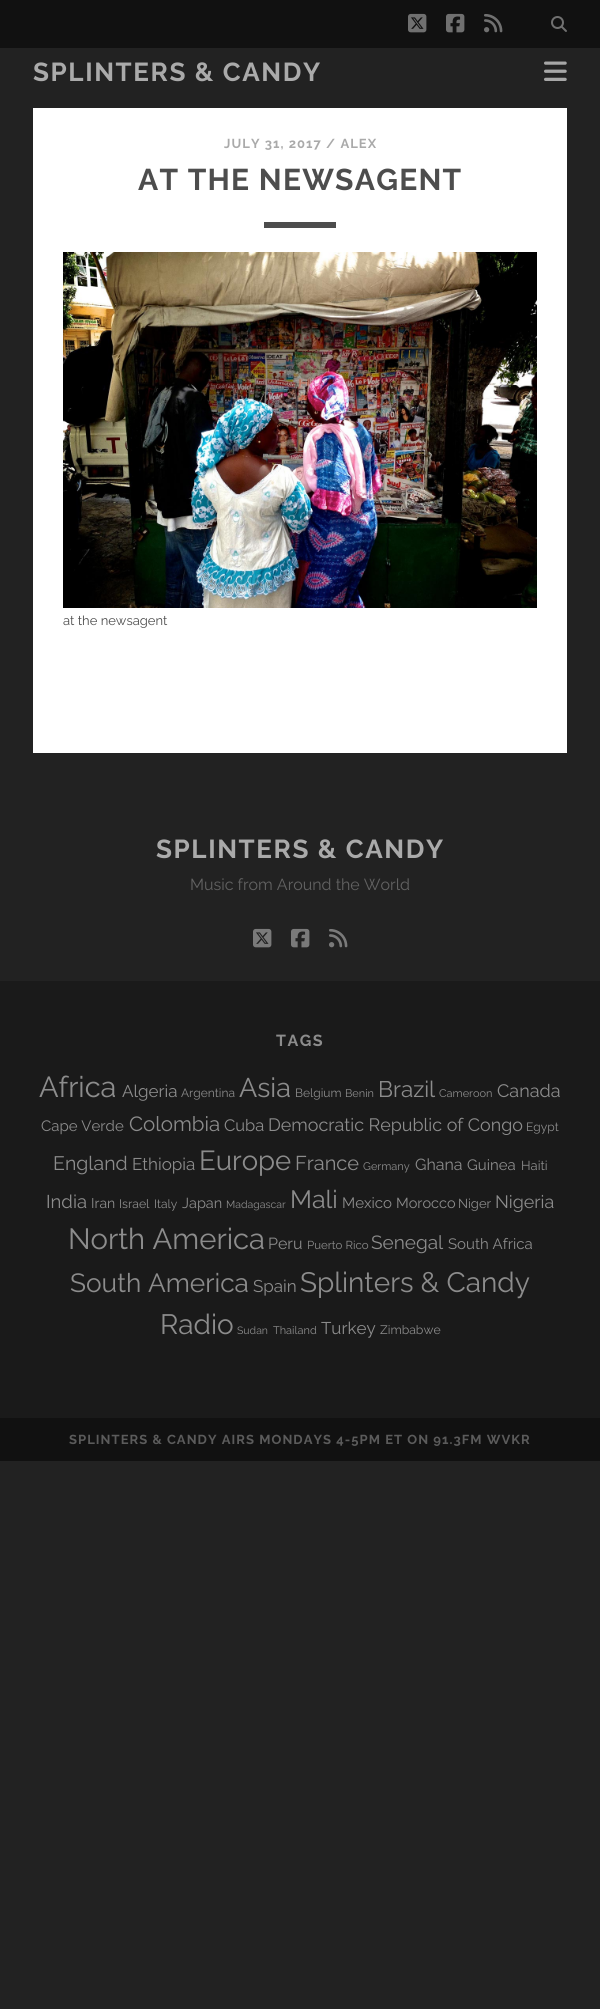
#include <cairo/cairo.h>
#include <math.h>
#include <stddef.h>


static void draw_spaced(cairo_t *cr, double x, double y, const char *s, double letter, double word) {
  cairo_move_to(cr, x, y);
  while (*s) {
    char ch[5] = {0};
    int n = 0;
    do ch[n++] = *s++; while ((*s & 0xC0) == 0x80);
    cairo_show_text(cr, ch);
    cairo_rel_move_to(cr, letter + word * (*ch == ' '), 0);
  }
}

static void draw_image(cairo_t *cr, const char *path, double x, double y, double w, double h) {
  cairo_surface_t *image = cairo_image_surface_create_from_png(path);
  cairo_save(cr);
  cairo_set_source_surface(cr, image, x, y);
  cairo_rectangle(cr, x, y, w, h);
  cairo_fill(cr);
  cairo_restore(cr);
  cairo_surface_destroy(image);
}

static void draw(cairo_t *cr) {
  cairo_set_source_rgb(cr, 34 / 255.0, 34 / 255.0, 34 / 255.0);
  cairo_paint(cr);
  cairo_set_source_rgb(cr, 17 / 255.0, 17 / 255.0, 17 / 255.0);
  cairo_rectangle(cr, 0, 0, 600, 48);
  cairo_fill(cr);
  draw_image(cr, "images/1.png", 408, 13, 19, 20);
  draw_image(cr, "images/2.png", 446, 13, 19, 20);
  draw_image(cr, "images/3.png", 484, 14, 19, 19);
  draw_image(cr, "images/4.png", 551, 16, 16, 16);
  draw_image(cr, "images/5.png", 544, 61, 23, 20);
  cairo_set_source_rgb(cr, 1, 1, 1);
  cairo_rectangle(cr, 33, 108, 534, 645);
  cairo_fill(cr);
  cairo_set_source_rgb(cr, 77 / 255.0, 77 / 255.0, 77 / 255.0);
  cairo_rectangle(cr, 264, 222, 72, 6);
  cairo_fill(cr);
  draw_image(cr, "images/6.png", 63, 252, 474, 356);
  draw_image(cr, "images/7.png", 253, 928, 19, 20);
  draw_image(cr, "images/8.png", 291, 928, 19, 20);
  draw_image(cr, "images/9.png", 329, 929, 19, 19);
  cairo_set_source_rgb(cr, 26 / 255.0, 26 / 255.0, 26 / 255.0);
  cairo_rectangle(cr, 0, 981, 600, 437);
  cairo_fill(cr);
  cairo_set_source_rgb(cr, 17 / 255.0, 17 / 255.0, 17 / 255.0);
  cairo_rectangle(cr, 0, 1418, 600, 43);
  cairo_fill(cr);
  cairo_select_font_face(cr, "Raleway", CAIRO_FONT_SLANT_NORMAL, CAIRO_FONT_WEIGHT_BOLD);
  cairo_set_font_size(cr, 26);
  cairo_set_source_rgb(cr, 170 / 255.0, 170 / 255.0, 170 / 255.0);
  draw_spaced(cr, 33, 81, "SPLINTERS & CANDY", 1.6, 0);
  cairo_set_font_size(cr, 13);
  draw_spaced(cr, 224, 148, "JULY 31, 2017 / ALEX", 1.05, 0);
  cairo_set_font_size(cr, 30);
  cairo_set_source_rgb(cr, 77 / 255.0, 77 / 255.0, 77 / 255.0);
  draw_spaced(cr, 138, 190, "AT THE NEWSAGENT", 1.25, 0);
  cairo_select_font_face(cr, "Raleway", CAIRO_FONT_SLANT_NORMAL, CAIRO_FONT_WEIGHT_NORMAL);
  cairo_set_font_size(cr, 13);
  cairo_move_to(cr, 63, 625);
  cairo_show_text(cr, "at the newsagent");
  cairo_select_font_face(cr, "Raleway", CAIRO_FONT_SLANT_NORMAL, CAIRO_FONT_WEIGHT_BOLD);
  cairo_set_font_size(cr, 26);
  cairo_set_source_rgb(cr, 170 / 255.0, 170 / 255.0, 170 / 255.0);
  draw_spaced(cr, 156, 858, "SPLINTERS & CANDY", 1.6, 0);
  cairo_select_font_face(cr, "Raleway", CAIRO_FONT_SLANT_NORMAL, CAIRO_FONT_WEIGHT_NORMAL);
  cairo_set_font_size(cr, 16);
  cairo_set_source_rgb(cr, 98 / 255.0, 98 / 255.0, 98 / 255.0);
  cairo_move_to(cr, 190, 890);
  cairo_show_text(cr, "Music from Around the World");
  cairo_select_font_face(cr, "Raleway", CAIRO_FONT_SLANT_NORMAL, CAIRO_FONT_WEIGHT_BOLD);
  cairo_set_source_rgb(cr, 140 / 255.0, 140 / 255.0, 140 / 255.0);
  draw_spaced(cr, 276, 1046, "TAGS", 1.5, 0);
  cairo_select_font_face(cr, "Raleway", CAIRO_FONT_SLANT_NORMAL, CAIRO_FONT_WEIGHT_NORMAL);
  cairo_set_font_size(cr, 29);
  cairo_move_to(cr, 39, 1097);
  cairo_show_text(cr, "Africa");
  cairo_set_font_size(cr, 17);
  cairo_move_to(cr, 122, 1097);
  cairo_show_text(cr, "Algeria");
  cairo_set_font_size(cr, 12);
  cairo_move_to(cr, 181, 1097);
  cairo_show_text(cr, "Argentina");
  cairo_set_font_size(cr, 27);
  cairo_move_to(cr, 239, 1097);
  cairo_show_text(cr, "Asia");
  cairo_set_font_size(cr, 12);
  cairo_move_to(cr, 295, 1097);
  cairo_show_text(cr, "Belgium");
  cairo_set_font_size(cr, 11);
  cairo_move_to(cr, 345, 1097);
  cairo_show_text(cr, "Benin");
  cairo_set_font_size(cr, 22.5);
  cairo_move_to(cr, 378, 1097);
  cairo_show_text(cr, "Brazil");
  cairo_set_font_size(cr, 11);
  cairo_move_to(cr, 439, 1097);
  cairo_show_text(cr, "Cameroon");
  cairo_set_font_size(cr, 18);
  cairo_move_to(cr, 497, 1097);
  cairo_show_text(cr, "Canada");
  cairo_set_font_size(cr, 15);
  cairo_move_to(cr, 41, 1131);
  cairo_show_text(cr, "Cape Verde");
  cairo_set_font_size(cr, 20.5);
  cairo_move_to(cr, 129, 1131);
  cairo_show_text(cr, "Colombia");
  cairo_set_font_size(cr, 16.5);
  cairo_move_to(cr, 224, 1131);
  cairo_show_text(cr, "Cuba");
  cairo_set_font_size(cr, 17.9);
  cairo_move_to(cr, 268, 1131);
  cairo_show_text(cr, "Democratic Republic of Congo");
  cairo_set_font_size(cr, 12);
  cairo_move_to(cr, 526, 1131);
  cairo_show_text(cr, "Egypt");
  cairo_set_font_size(cr, 19.5);
  cairo_move_to(cr, 53, 1170);
  cairo_show_text(cr, "England");
  cairo_set_font_size(cr, 17);
  cairo_move_to(cr, 132, 1170);
  cairo_show_text(cr, "Ethiopia");
  cairo_set_font_size(cr, 27.5);
  cairo_move_to(cr, 199, 1170);
  cairo_show_text(cr, "Europe");
  cairo_set_font_size(cr, 20);
  cairo_move_to(cr, 295, 1170);
  cairo_show_text(cr, "France");
  cairo_set_font_size(cr, 11);
  cairo_move_to(cr, 363, 1170);
  cairo_show_text(cr, "Germany");
  cairo_set_font_size(cr, 16);
  cairo_move_to(cr, 415, 1170);
  cairo_show_text(cr, "Ghana");
  cairo_set_font_size(cr, 15);
  cairo_move_to(cr, 467, 1170);
  cairo_show_text(cr, "Guinea");
  cairo_set_font_size(cr, 13);
  cairo_move_to(cr, 521, 1170);
  cairo_show_text(cr, "Haiti");
  cairo_set_font_size(cr, 18.5);
  cairo_move_to(cr, 46, 1208);
  cairo_show_text(cr, "India");
  cairo_set_font_size(cr, 14);
  cairo_move_to(cr, 91, 1208);
  cairo_show_text(cr, "Iran");
  cairo_set_font_size(cr, 12.25);
  cairo_move_to(cr, 119, 1208);
  cairo_show_text(cr, "Israel");
  cairo_set_font_size(cr, 12);
  cairo_move_to(cr, 154, 1208);
  cairo_show_text(cr, "Italy");
  cairo_set_font_size(cr, 14.5);
  cairo_move_to(cr, 182, 1208);
  cairo_show_text(cr, "Japan");
  cairo_set_font_size(cr, 10.5);
  cairo_move_to(cr, 226, 1208);
  cairo_show_text(cr, "Madagascar");
  cairo_set_font_size(cr, 25);
  cairo_move_to(cr, 290, 1208);
  cairo_show_text(cr, "Mali");
  cairo_set_font_size(cr, 15);
  cairo_move_to(cr, 342, 1208);
  cairo_show_text(cr, "Mexico");
  cairo_set_font_size(cr, 14.5);
  cairo_move_to(cr, 396, 1208);
  cairo_show_text(cr, "Morocco");
  cairo_set_font_size(cr, 13);
  cairo_move_to(cr, 458, 1208);
  cairo_show_text(cr, "Niger");
  cairo_set_font_size(cr, 17.9);
  cairo_move_to(cr, 495, 1208);
  cairo_show_text(cr, "Nigeria");
  cairo_set_font_size(cr, 29.25);
  cairo_move_to(cr, 68, 1249);
  cairo_show_text(cr, "North America");
  cairo_set_font_size(cr, 16);
  cairo_move_to(cr, 268, 1249);
  cairo_show_text(cr, "Peru");
  cairo_set_font_size(cr, 11.5);
  cairo_move_to(cr, 307, 1249);
  cairo_show_text(cr, "Puerto Rico");
  cairo_set_font_size(cr, 19);
  cairo_move_to(cr, 371, 1249);
  cairo_show_text(cr, "Senegal");
  cairo_set_font_size(cr, 15);
  cairo_move_to(cr, 448, 1249);
  cairo_show_text(cr, "South Africa");
  cairo_set_font_size(cr, 26.25);
  cairo_move_to(cr, 70, 1292);
  cairo_show_text(cr, "South America");
  cairo_set_font_size(cr, 17);
  cairo_move_to(cr, 253, 1292);
  cairo_show_text(cr, "Spain");
  cairo_set_font_size(cr, 28);
  cairo_move_to(cr, 300, 1292);
  cairo_show_text(cr, "Splinters & Candy");
  cairo_move_to(cr, 160, 1334);
  cairo_show_text(cr, "Radio");
  cairo_set_font_size(cr, 10.5);
  cairo_move_to(cr, 237, 1334);
  cairo_show_text(cr, "Sudan");
  cairo_set_font_size(cr, 11);
  cairo_move_to(cr, 273, 1334);
  cairo_show_text(cr, "Thailand");
  cairo_set_font_size(cr, 17);
  cairo_move_to(cr, 321, 1334);
  cairo_show_text(cr, "Turkey");
  cairo_set_font_size(cr, 12.25);
  cairo_move_to(cr, 380, 1334);
  cairo_show_text(cr, "Zimbabwe");
  cairo_select_font_face(cr, "Raleway", CAIRO_FONT_SLANT_NORMAL, CAIRO_FONT_WEIGHT_BOLD);
  cairo_set_font_size(cr, 13);
  cairo_set_source_rgb(cr, 91 / 255.0, 91 / 255.0, 91 / 255.0);
  draw_spaced(cr, 69, 1444, "SPLINTERS & CANDY AIRS MONDAYS 4-5PM ET ON 91.3FM WVKR", 1.05, 0);
}

int main(void) {
  cairo_surface_t *surface = cairo_image_surface_create(CAIRO_FORMAT_RGB24, 600, 2009);
  cairo_t *cr = cairo_create(surface);
  cairo_font_options_t *options = cairo_font_options_create();
  cairo_font_options_set_hint_metrics(options, CAIRO_HINT_METRICS_OFF);
  cairo_font_options_set_hint_style(options, CAIRO_HINT_STYLE_NONE);
  cairo_set_font_options(cr, options);
  cairo_set_miter_limit(cr, 4);
  draw(cr);
  cairo_surface_write_to_png(surface, "out.png");
  cairo_font_options_destroy(options);
  cairo_destroy(cr);
  cairo_surface_destroy(surface);
  return 0;
}
